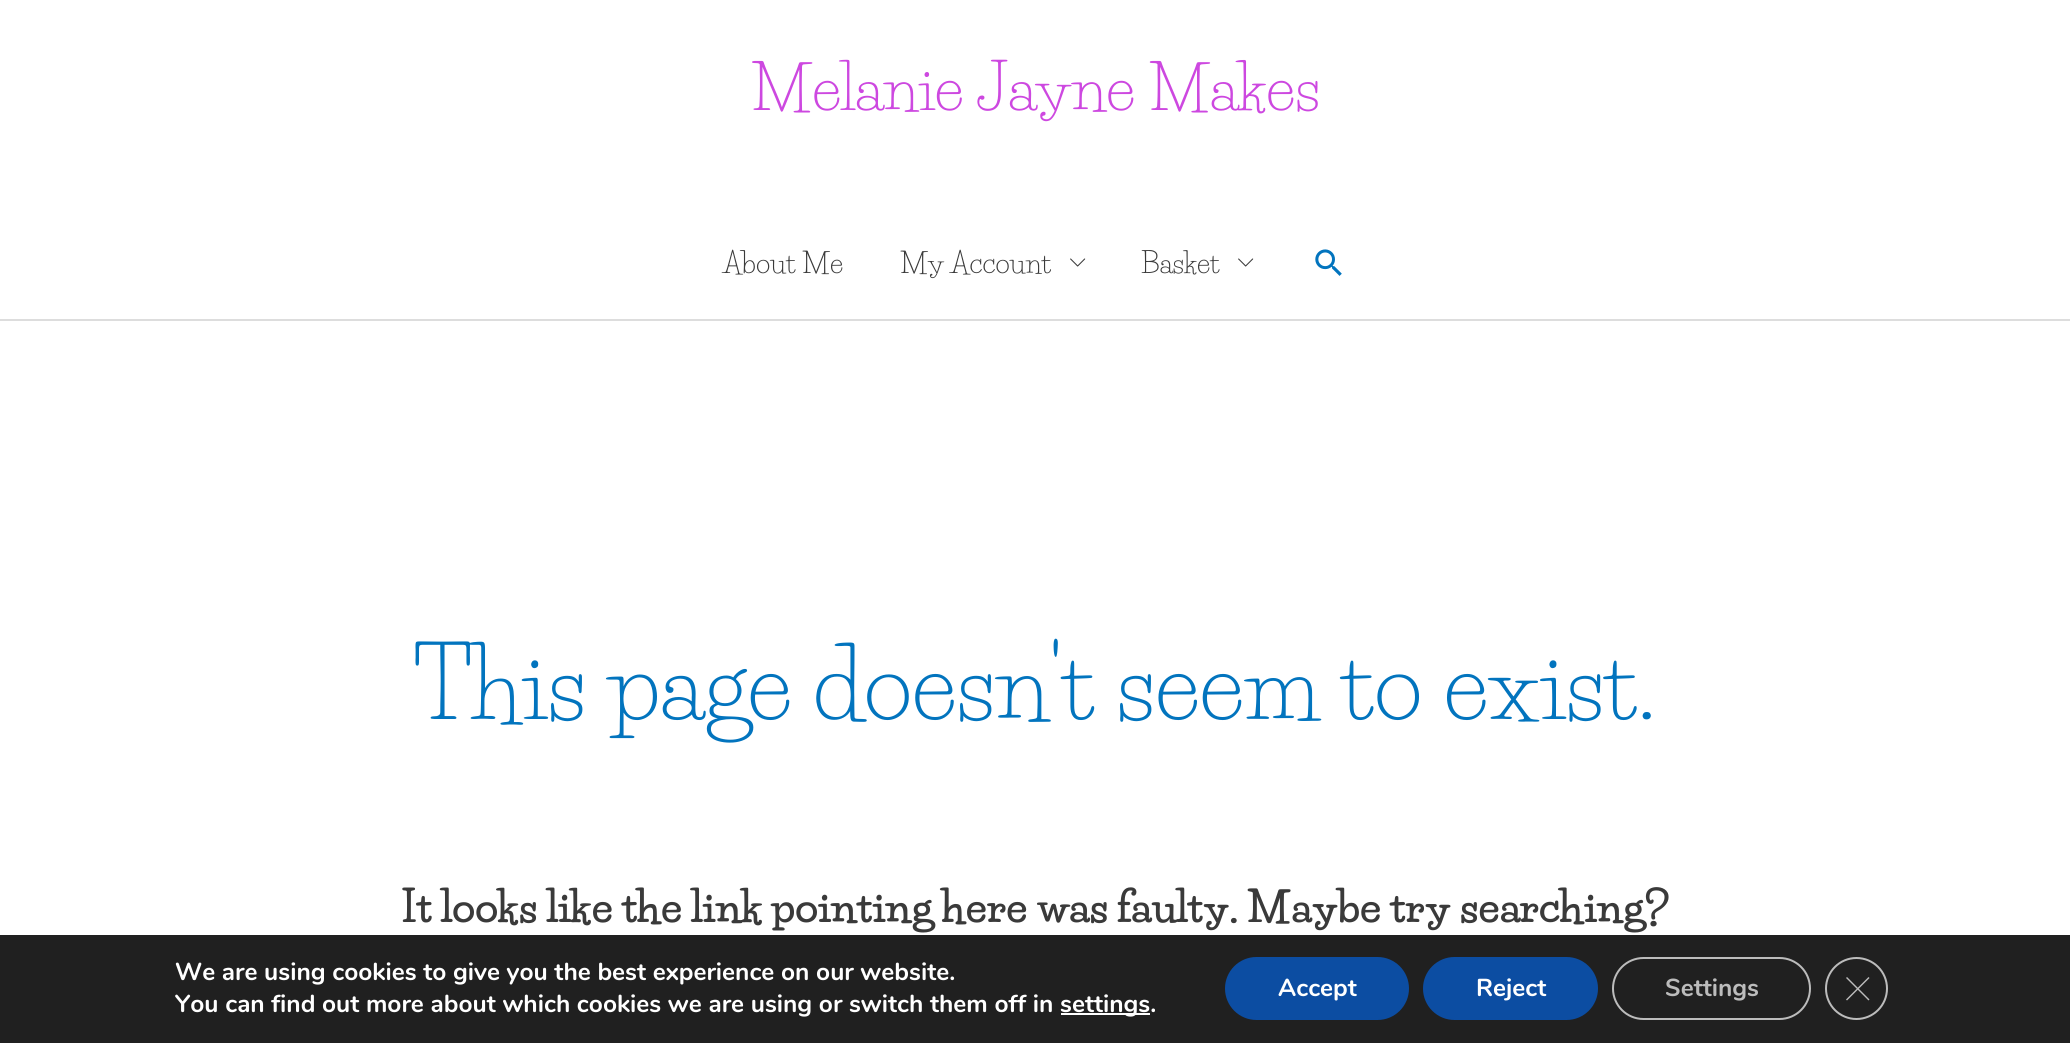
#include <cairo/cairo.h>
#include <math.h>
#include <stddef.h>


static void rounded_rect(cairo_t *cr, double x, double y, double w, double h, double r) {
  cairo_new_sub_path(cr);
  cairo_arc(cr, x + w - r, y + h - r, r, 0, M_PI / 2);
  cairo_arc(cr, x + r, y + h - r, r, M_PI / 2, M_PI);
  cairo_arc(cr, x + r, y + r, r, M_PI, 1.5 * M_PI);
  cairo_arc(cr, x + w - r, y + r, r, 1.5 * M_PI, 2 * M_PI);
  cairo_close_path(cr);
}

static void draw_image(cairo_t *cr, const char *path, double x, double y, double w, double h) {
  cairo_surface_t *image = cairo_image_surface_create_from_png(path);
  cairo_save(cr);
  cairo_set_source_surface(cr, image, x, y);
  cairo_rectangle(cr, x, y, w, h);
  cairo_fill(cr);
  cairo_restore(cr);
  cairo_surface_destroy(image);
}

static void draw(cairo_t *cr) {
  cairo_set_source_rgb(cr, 1, 1, 1);
  cairo_paint(cr);
  cairo_set_source_rgb(cr, 221 / 255.0, 221 / 255.0, 221 / 255.0);
  cairo_rectangle(cr, 0, 319, 2070, 2);
  cairo_fill(cr);
  draw_image(cr, "images/1.png", 1070, 258, 16, 9);
  draw_image(cr, "images/1.png", 1238, 258, 16, 9);
  draw_image(cr, "images/2.png", 1315, 249, 27, 27);
  cairo_set_source_rgb(cr, 32 / 255.0, 32 / 255.0, 32 / 255.0);
  cairo_rectangle(cr, 0, 935, 2070, 108);
  cairo_fill(cr);
  cairo_set_source_rgb(cr, 1, 1, 1);
  cairo_rectangle(cr, 1061, 1013, 89, 2);
  cairo_fill(cr);
  cairo_set_source_rgb(cr, 12 / 255.0, 77 / 255.0, 162 / 255.0);
  rounded_rect(cr, 1225, 957, 184, 63, 31.5);
  cairo_fill(cr);
  rounded_rect(cr, 1423, 957, 175, 63, 31.5);
  cairo_fill(cr);
  rounded_rect(cr, 1613, 958, 197, 61, 30.5);
  cairo_set_source_rgb(cr, 188 / 255.0, 188 / 255.0, 188 / 255.0);
  cairo_stroke(cr);
  cairo_arc(cr, 1856.5, 988.5, 30.5, 0, 2 * M_PI);
  cairo_stroke(cr);
  cairo_new_path(cr);
  cairo_move_to(cr, 1868.5, 977);
  cairo_line_to(cr, 1869.5, 978);
  cairo_line_to(cr, 1847, 1000.5);
  cairo_line_to(cr, 1846, 999.5);
  cairo_close_path(cr);
  cairo_fill(cr);
  cairo_new_path(cr);
  cairo_move_to(cr, 1846, 978);
  cairo_line_to(cr, 1847, 977);
  cairo_line_to(cr, 1869.5, 999.5);
  cairo_line_to(cr, 1868.5, 1000.5);
  cairo_close_path(cr);
  cairo_fill(cr);
  cairo_select_font_face(cr, "Life Savers", CAIRO_FONT_SLANT_NORMAL, CAIRO_FONT_WEIGHT_NORMAL);
  cairo_set_font_size(cr, 61.25);
  cairo_set_source_rgb(cr, 205 / 255.0, 72 / 255.0, 224 / 255.0);
  cairo_move_to(cr, 751, 110);
  cairo_show_text(cr, "Melanie Jayne Makes");
  cairo_set_font_size(cr, 28);
  cairo_set_source_rgb(cr, 58 / 255.0, 58 / 255.0, 58 / 255.0);
  cairo_move_to(cr, 723, 273);
  cairo_show_text(cr, "About Me");
  cairo_move_to(cr, 900, 273);
  cairo_show_text(cr, "My Account");
  cairo_move_to(cr, 1141, 273);
  cairo_show_text(cr, "Basket");
  cairo_set_font_size(cr, 94.5);
  cairo_set_source_rgb(cr, 2 / 255.0, 116 / 255.0, 190 / 255.0);
  cairo_move_to(cr, 414, 719);
  cairo_show_text(cr, "This page doesn't seem to exist.");
  cairo_select_font_face(cr, "Life Savers ExtraBold", CAIRO_FONT_SLANT_NORMAL, CAIRO_FONT_WEIGHT_NORMAL);
  cairo_set_font_size(cr, 42);
  cairo_set_source_rgb(cr, 58 / 255.0, 58 / 255.0, 58 / 255.0);
  cairo_move_to(cr, 401, 922);
  cairo_show_text(cr, "It looks like the link pointing here was faulty. Maybe try searching?");
  cairo_select_font_face(cr, "Nunito", CAIRO_FONT_SLANT_NORMAL, CAIRO_FONT_WEIGHT_BOLD);
  cairo_set_font_size(cr, 24.5);
  cairo_set_source_rgb(cr, 1, 1, 1);
  cairo_move_to(cr, 175, 980);
  cairo_show_text(cr, "We are using cookies to give you the best experience on our website.");
  cairo_move_to(cr, 175, 1012);
  cairo_show_text(cr, "You can find out more about which cookies we are using or switch them off in");
  cairo_move_to(cr, 1060, 1012);
  cairo_show_text(cr, "settings.");
  cairo_move_to(cr, 1278, 996);
  cairo_show_text(cr, "Accept");
  cairo_move_to(cr, 1476, 996);
  cairo_show_text(cr, "Reject");
  cairo_set_source_rgb(cr, 188 / 255.0, 188 / 255.0, 188 / 255.0);
  cairo_move_to(cr, 1665, 996);
  cairo_show_text(cr, "Settings");
}

int main(void) {
  cairo_surface_t *surface = cairo_image_surface_create(CAIRO_FORMAT_RGB24, 2070, 1043);
  cairo_t *cr = cairo_create(surface);
  cairo_font_options_t *options = cairo_font_options_create();
  cairo_font_options_set_hint_metrics(options, CAIRO_HINT_METRICS_OFF);
  cairo_font_options_set_hint_style(options, CAIRO_HINT_STYLE_NONE);
  cairo_set_font_options(cr, options);
  cairo_set_miter_limit(cr, 4);
  draw(cr);
  cairo_surface_write_to_png(surface, "out.png");
  cairo_font_options_destroy(options);
  cairo_destroy(cr);
  cairo_surface_destroy(surface);
  return 0;
}
